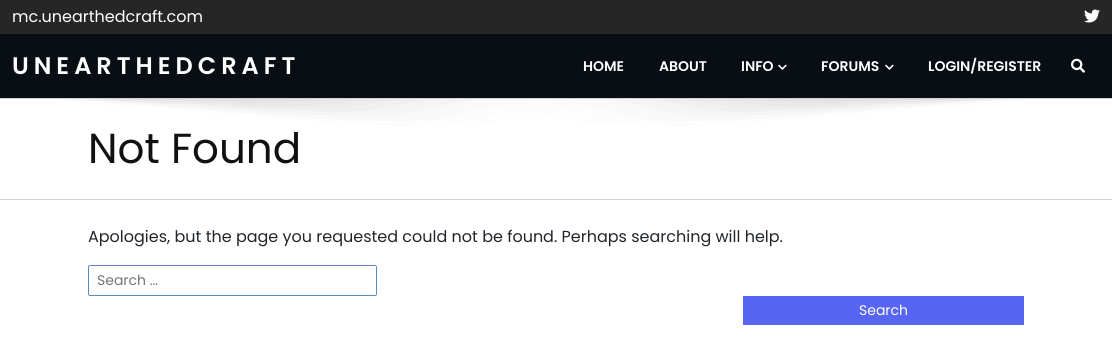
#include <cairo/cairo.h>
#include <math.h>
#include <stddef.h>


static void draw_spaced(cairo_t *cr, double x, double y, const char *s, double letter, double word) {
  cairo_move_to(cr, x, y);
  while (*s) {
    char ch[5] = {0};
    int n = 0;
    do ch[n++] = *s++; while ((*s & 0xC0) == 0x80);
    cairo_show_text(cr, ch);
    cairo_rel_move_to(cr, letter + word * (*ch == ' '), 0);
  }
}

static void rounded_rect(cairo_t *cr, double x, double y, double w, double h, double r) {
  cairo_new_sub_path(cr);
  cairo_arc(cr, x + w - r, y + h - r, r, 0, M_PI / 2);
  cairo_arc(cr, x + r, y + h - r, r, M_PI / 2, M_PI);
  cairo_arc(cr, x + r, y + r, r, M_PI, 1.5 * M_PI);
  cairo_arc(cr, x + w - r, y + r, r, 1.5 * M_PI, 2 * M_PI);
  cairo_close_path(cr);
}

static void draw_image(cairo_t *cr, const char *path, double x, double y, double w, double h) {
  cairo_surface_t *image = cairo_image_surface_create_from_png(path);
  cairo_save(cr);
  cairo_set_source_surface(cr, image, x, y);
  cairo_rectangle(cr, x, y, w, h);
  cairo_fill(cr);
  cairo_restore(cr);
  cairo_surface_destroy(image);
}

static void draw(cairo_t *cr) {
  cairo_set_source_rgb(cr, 38 / 255.0, 38 / 255.0, 38 / 255.0);
  cairo_paint(cr);
  draw_image(cr, "images/1.png", 1084, 9, 16, 14);
  cairo_set_source_rgb(cr, 9 / 255.0, 13 / 255.0, 20 / 255.0);
  cairo_rectangle(cr, 0, 34, 1112, 64);
  cairo_fill(cr);
  draw_image(cr, "images/2.png", 778, 64, 9, 6);
  draw_image(cr, "images/2.png", 885, 64, 9, 6);
  draw_image(cr, "images/3.png", 1071, 58, 14, 15);
  cairo_set_source_rgb(cr, 1, 1, 1);
  cairo_rectangle(cr, 0, 99, 1112, 240);
  cairo_fill(cr);
  draw_image(cr, "images/4.png", 57, 99, 967, 28);
  cairo_set_source_rgb(cr, 210 / 255.0, 211 / 255.0, 212 / 255.0);
  cairo_rectangle(cr, 0, 98, 1112, 1);
  cairo_fill(cr);
  cairo_rectangle(cr, 0, 199, 1112, 1);
  cairo_fill(cr);
  rounded_rect(cr, 88.5, 265.5, 288, 30, 1.5);
  cairo_set_source_rgb(cr, 87 / 255.0, 139 / 255.0, 200 / 255.0);
  cairo_set_line_width(cr, 1);
  cairo_stroke(cr);
  cairo_set_source_rgb(cr, 88 / 255.0, 101 / 255.0, 242 / 255.0);
  cairo_rectangle(cr, 743, 296, 281, 29);
  cairo_fill(cr);
  cairo_select_font_face(cr, "Poppins", CAIRO_FONT_SLANT_NORMAL, CAIRO_FONT_WEIGHT_NORMAL);
  cairo_set_font_size(cr, 16);
  cairo_set_source_rgb(cr, 1, 1, 1);
  cairo_move_to(cr, 12, 22);
  cairo_show_text(cr, "mc.unearthedcraft.com");
  cairo_select_font_face(cr, "Poppins SemiBold", CAIRO_FONT_SLANT_NORMAL, CAIRO_FONT_WEIGHT_NORMAL);
  cairo_set_font_size(cr, 24);
  draw_spaced(cr, 12, 74, "UNEARTHEDCRAFT", 5, 0);
  cairo_set_font_size(cr, 14);
  cairo_move_to(cr, 583, 71);
  cairo_show_text(cr, "HOME");
  cairo_move_to(cr, 659, 71);
  cairo_show_text(cr, "ABOUT");
  cairo_move_to(cr, 741, 71);
  cairo_show_text(cr, "INFO");
  cairo_move_to(cr, 821, 71);
  cairo_show_text(cr, "FORUMS");
  cairo_move_to(cr, 928, 71);
  cairo_show_text(cr, "LOGIN/REGISTER");
  cairo_select_font_face(cr, "Poppins", CAIRO_FONT_SLANT_NORMAL, CAIRO_FONT_WEIGHT_NORMAL);
  cairo_set_font_size(cr, 42);
  cairo_set_source_rgb(cr, 17 / 255.0, 17 / 255.0, 17 / 255.0);
  cairo_move_to(cr, 88, 163);
  cairo_show_text(cr, "Not Found");
  cairo_set_font_size(cr, 16);
  cairo_set_source_rgb(cr, 33 / 255.0, 37 / 255.0, 41 / 255.0);
  cairo_move_to(cr, 88, 242);
  cairo_show_text(cr, "Apologies, but the page you requested could not be found. Perhaps searching will help.");
  cairo_set_font_size(cr, 14);
  cairo_set_source_rgb(cr, 117 / 255.0, 117 / 255.0, 117 / 255.0);
  cairo_move_to(cr, 97, 285);
  cairo_show_text(cr, "Search …");
  cairo_set_source_rgb(cr, 1, 1, 1);
  cairo_move_to(cr, 859, 315);
  cairo_show_text(cr, "Search");
}

int main(void) {
  cairo_surface_t *surface = cairo_image_surface_create(CAIRO_FORMAT_RGB24, 1112, 339);
  cairo_t *cr = cairo_create(surface);
  cairo_font_options_t *options = cairo_font_options_create();
  cairo_font_options_set_hint_metrics(options, CAIRO_HINT_METRICS_OFF);
  cairo_font_options_set_hint_style(options, CAIRO_HINT_STYLE_NONE);
  cairo_set_font_options(cr, options);
  cairo_set_miter_limit(cr, 4);
  draw(cr);
  cairo_surface_write_to_png(surface, "out.png");
  cairo_font_options_destroy(options);
  cairo_destroy(cr);
  cairo_surface_destroy(surface);
  return 0;
}
